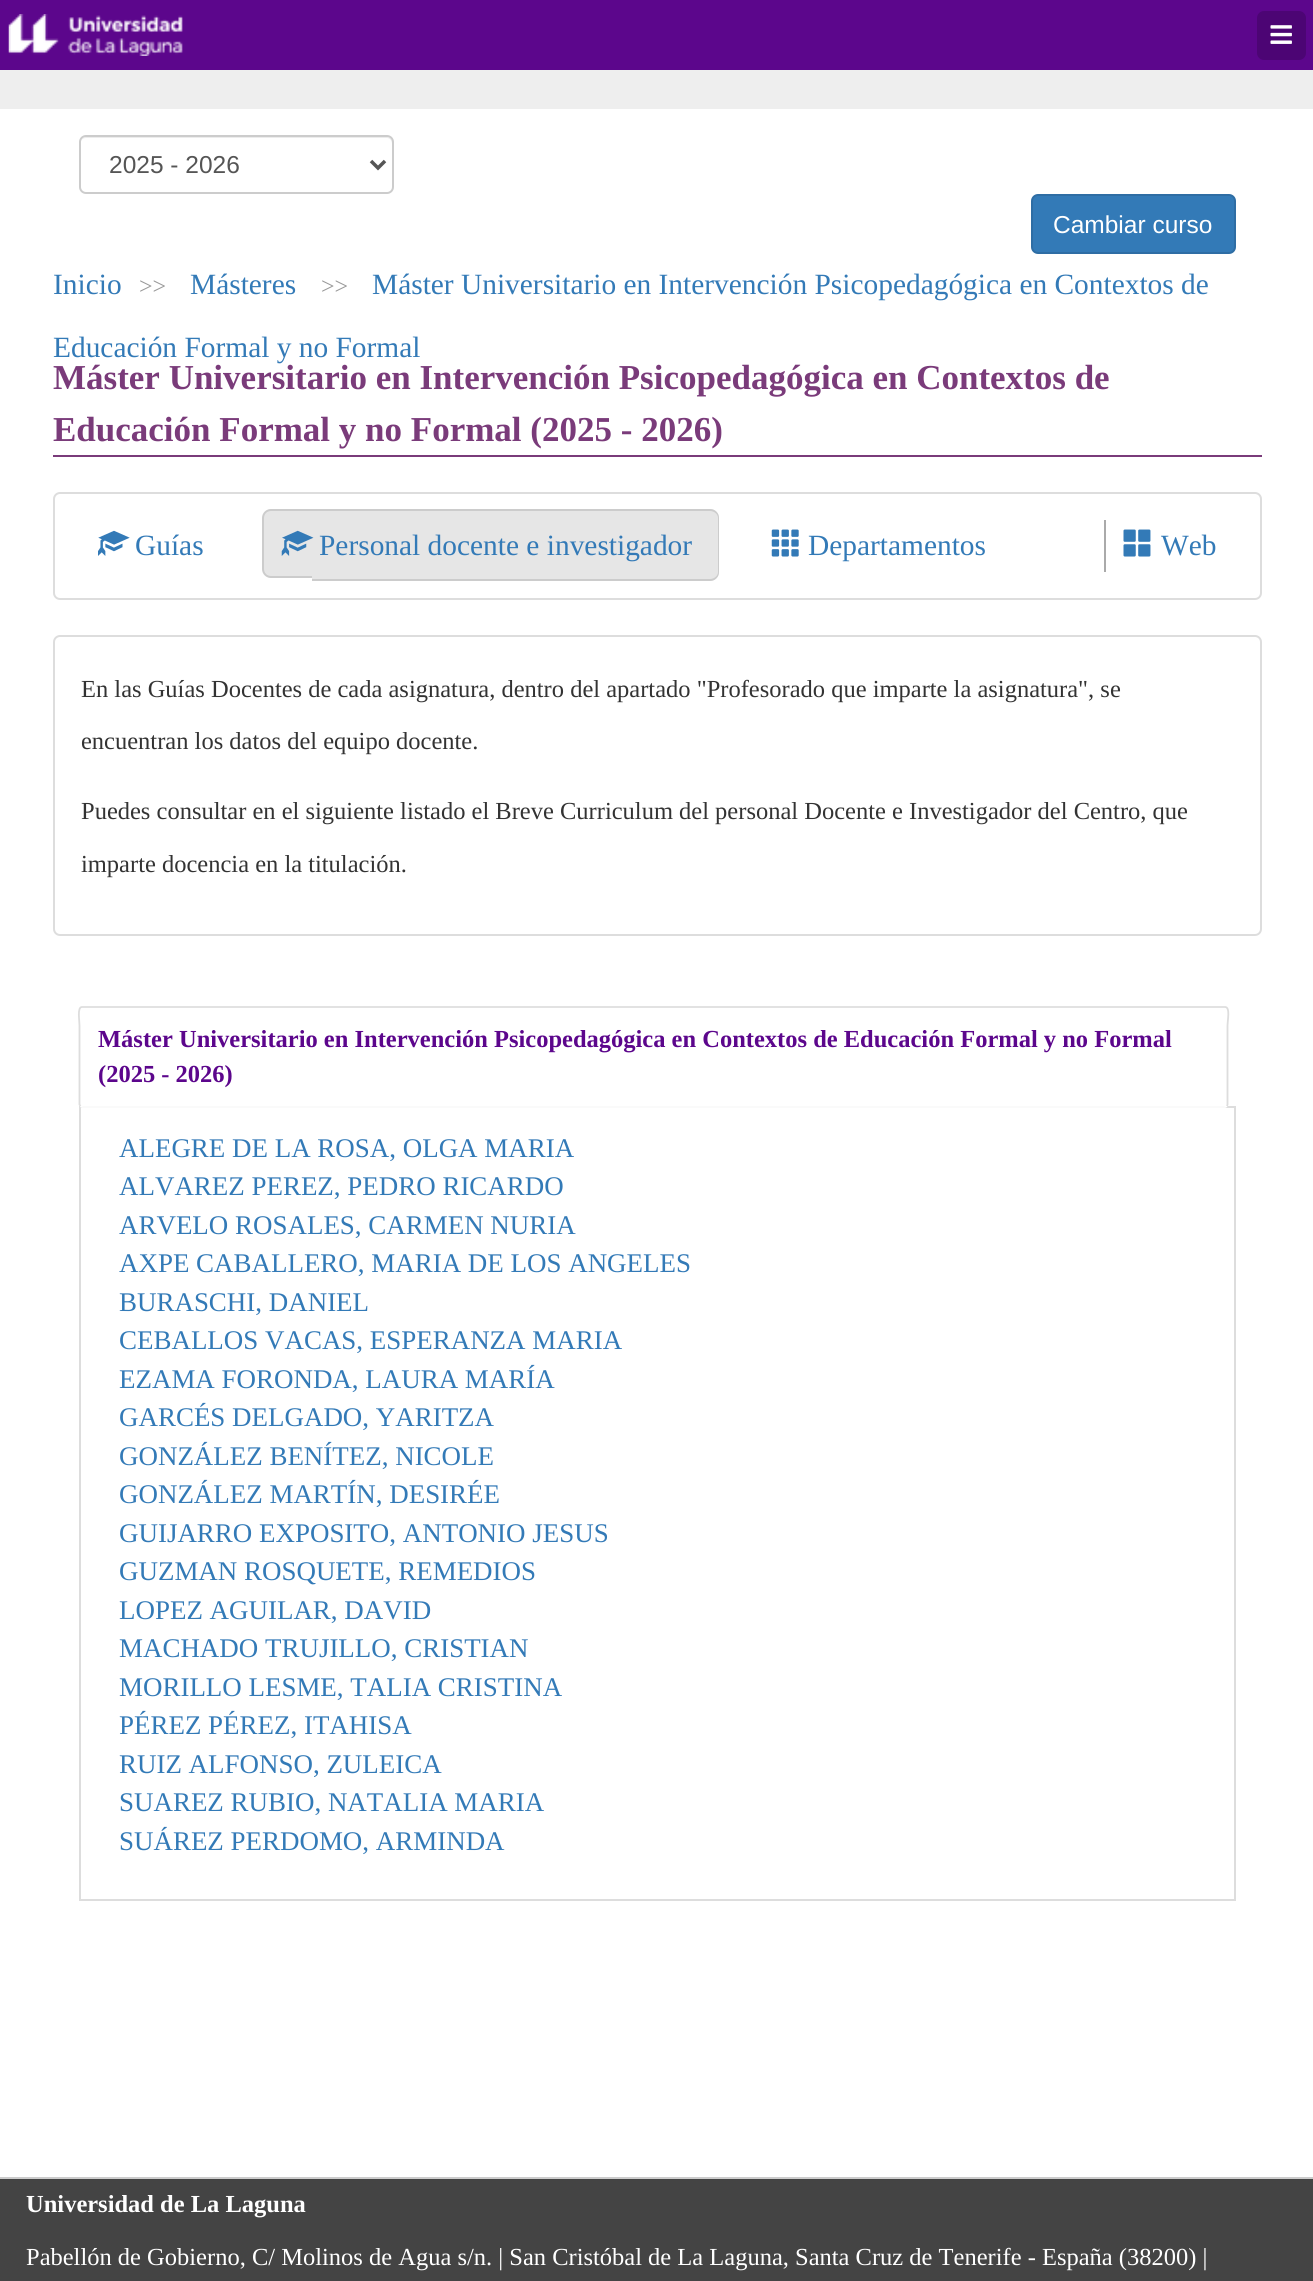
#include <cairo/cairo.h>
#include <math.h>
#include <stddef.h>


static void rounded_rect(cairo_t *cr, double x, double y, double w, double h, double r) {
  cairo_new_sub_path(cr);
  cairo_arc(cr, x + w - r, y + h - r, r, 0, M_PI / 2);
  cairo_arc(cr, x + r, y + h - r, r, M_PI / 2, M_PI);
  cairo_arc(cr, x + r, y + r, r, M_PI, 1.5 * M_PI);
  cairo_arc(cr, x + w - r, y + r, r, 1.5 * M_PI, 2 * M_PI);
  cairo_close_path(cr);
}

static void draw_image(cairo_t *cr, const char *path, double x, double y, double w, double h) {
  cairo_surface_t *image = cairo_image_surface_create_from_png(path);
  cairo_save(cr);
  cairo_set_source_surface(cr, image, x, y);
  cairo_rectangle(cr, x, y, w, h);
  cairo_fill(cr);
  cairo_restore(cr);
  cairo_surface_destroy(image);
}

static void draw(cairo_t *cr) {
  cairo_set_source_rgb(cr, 1, 1, 1);
  cairo_paint(cr);
  cairo_set_source_rgb(cr, 92 / 255.0, 6 / 255.0, 140 / 255.0);
  cairo_rectangle(cr, 0, 0, 1313, 70);
  cairo_fill(cr);
  draw_image(cr, "images/1.png", 8, 14, 175, 42);
  cairo_set_source_rgb(cr, 76 / 255.0, 5 / 255.0, 116 / 255.0);
  rounded_rect(cr, 1257, 11, 49, 49, 7);
  cairo_fill(cr);
  draw_image(cr, "images/2.png", 1270, 25, 22, 19);
  cairo_set_source_rgb(cr, 238 / 255.0, 238 / 255.0, 238 / 255.0);
  cairo_rectangle(cr, 0, 70, 1313, 39);
  cairo_fill(cr);
  cairo_set_source_rgb(cr, 236 / 255.0, 236 / 255.0, 236 / 255.0);
  cairo_new_path(cr);
  cairo_move_to(cr, 86, 138);
  cairo_line_to(cr, 387, 138);
  cairo_curve_to(cr, 390, 138, 392, 141, 392, 144);
  cairo_line_to(cr, 392, 142);
  cairo_curve_to(cr, 392, 139, 390, 137, 387, 137);
  cairo_line_to(cr, 86, 137);
  cairo_curve_to(cr, 84, 137, 82, 139, 81, 141);
  cairo_curve_to(cr, 82, 139, 84, 138, 86, 138);
  cairo_close_path(cr);
  cairo_fill(cr);
  rounded_rect(cr, 80, 136, 313, 57, 6);
  cairo_set_source_rgb(cr, 204 / 255.0, 204 / 255.0, 204 / 255.0);
  cairo_stroke(cr);
  cairo_new_path(cr);
  cairo_move_to(cr, 371, 161);
  cairo_line_to(cr, 378, 168);
  cairo_line_to(cr, 385, 161);
  cairo_set_source_rgb(cr, 85 / 255.0, 85 / 255.0, 85 / 255.0);
  cairo_set_line_width(cr, 3.5);
  cairo_stroke(cr);
  cairo_set_source_rgb(cr, 51 / 255.0, 122 / 255.0, 183 / 255.0);
  rounded_rect(cr, 1032, 195, 203, 58, 6);
  cairo_fill_preserve(cr);
  cairo_set_source_rgb(cr, 46 / 255.0, 109 / 255.0, 164 / 255.0);
  cairo_set_line_width(cr, 2);
  cairo_stroke(cr);
  cairo_set_source_rgb(cr, 122 / 255.0, 59 / 255.0, 122 / 255.0);
  cairo_rectangle(cr, 53, 455, 1209, 2);
  cairo_fill(cr);
  rounded_rect(cr, 54, 493, 1207, 106, 6);
  cairo_set_source_rgb(cr, 221 / 255.0, 221 / 255.0, 221 / 255.0);
  cairo_stroke(cr);
  draw_image(cr, "images/3.png", 98, 530, 32, 26);
  cairo_set_source_rgb(cr, 230 / 255.0, 230 / 255.0, 230 / 255.0);
  cairo_new_path(cr);
  cairo_move_to(cr, 272, 509);
  cairo_line_to(cr, 312, 509);
  cairo_line_to(cr, 312, 578);
  cairo_line_to(cr, 272, 578);
  cairo_curve_to(cr, 267, 578, 263, 574, 263, 569);
  cairo_line_to(cr, 263, 518);
  cairo_curve_to(cr, 263, 513, 267, 509, 272, 509);
  cairo_close_path(cr);
  cairo_fill(cr);
  cairo_set_source_rgb(cr, 204 / 255.0, 204 / 255.0, 204 / 255.0);
  cairo_set_fill_rule(cr, CAIRO_FILL_RULE_EVEN_ODD);
  cairo_new_path(cr);
  cairo_move_to(cr, 271, 509);
  cairo_line_to(cr, 312, 509);
  cairo_line_to(cr, 312, 578);
  cairo_line_to(cr, 271, 578);
  cairo_curve_to(cr, 266, 578, 262, 574, 262, 569);
  cairo_line_to(cr, 262, 518);
  cairo_curve_to(cr, 262, 513, 266, 509, 271, 509);
  cairo_close_path(cr);
  cairo_move_to(cr, 271, 511);
  cairo_line_to(cr, 312, 511);
  cairo_line_to(cr, 312, 576);
  cairo_line_to(cr, 271, 576);
  cairo_curve_to(cr, 267, 576, 264, 573, 264, 569);
  cairo_line_to(cr, 264, 518);
  cairo_curve_to(cr, 264, 514, 267, 511, 271, 511);
  cairo_close_path(cr);
  cairo_fill(cr);
  cairo_set_source_rgb(cr, 230 / 255.0, 230 / 255.0, 230 / 255.0);
  cairo_new_path(cr);
  cairo_move_to(cr, 312, 509);
  cairo_line_to(cr, 710, 509);
  cairo_curve_to(cr, 715, 509, 719, 513, 719, 518);
  cairo_line_to(cr, 719, 572);
  cairo_curve_to(cr, 719, 577, 715, 581, 710, 581);
  cairo_line_to(cr, 312, 581);
  cairo_close_path(cr);
  cairo_fill(cr);
  cairo_set_source_rgb(cr, 204 / 255.0, 204 / 255.0, 204 / 255.0);
  cairo_new_path(cr);
  cairo_move_to(cr, 312, 509);
  cairo_line_to(cr, 710, 509);
  cairo_curve_to(cr, 715, 509, 719, 513, 719, 518);
  cairo_line_to(cr, 719, 572);
  cairo_curve_to(cr, 719, 577, 715, 581, 710, 581);
  cairo_line_to(cr, 312, 581);
  cairo_close_path(cr);
  cairo_move_to(cr, 312, 511);
  cairo_line_to(cr, 710, 511);
  cairo_curve_to(cr, 714, 511, 718, 514, 718, 518);
  cairo_line_to(cr, 718, 572);
  cairo_curve_to(cr, 718, 576, 714, 579, 710, 579);
  cairo_line_to(cr, 312, 579);
  cairo_close_path(cr);
  cairo_fill(cr);
  draw_image(cr, "images/4.png", 281, 530, 33, 26);
  draw_image(cr, "images/5.png", 771, 529, 28, 28);
  cairo_set_source_rgb(cr, 170 / 255.0, 170 / 255.0, 170 / 255.0);
  cairo_rectangle(cr, 1104, 520, 2, 52);
  cairo_fill(cr);
  draw_image(cr, "images/6.png", 1123, 529, 28, 28);
  rounded_rect(cr, 54, 636, 1207, 299, 6);
  cairo_set_source_rgb(cr, 221 / 255.0, 221 / 255.0, 221 / 255.0);
  cairo_stroke(cr);
  cairo_rectangle(cr, 79, 1106, 1157, 2);
  cairo_fill(cr);
  cairo_new_path(cr);
  cairo_move_to(cr, 1227, 1106);
  cairo_line_to(cr, 1225, 1107);
  cairo_line_to(cr, 82, 1107);
  cairo_line_to(cr, 80.5, 1106);
  cairo_set_source_rgb(cr, 1, 1, 1);
  cairo_set_line_width(cr, 1.8);
  cairo_stroke(cr);
  cairo_new_path(cr);
  cairo_move_to(cr, 80.5, 1106);
  cairo_line_to(cr, 79.5, 1104.5);
  cairo_line_to(cr, 79.5, 1025.5);
  cairo_curve_to(cr, 79.5, 1020.5, 77, 1007, 82, 1007);
  cairo_line_to(cr, 1225, 1007);
  cairo_curve_to(cr, 1230.5, 1007, 1227.5, 1020.5, 1227.5, 1025.5);
  cairo_line_to(cr, 1227.5, 1104.5);
  cairo_line_to(cr, 1227, 1106);
  cairo_set_source_rgb(cr, 221 / 255.0, 221 / 255.0, 221 / 255.0);
  cairo_stroke(cr);
  cairo_rectangle(cr, 1234, 1108, 2, 793);
  cairo_fill(cr);
  cairo_rectangle(cr, 79, 1899, 1157, 2);
  cairo_fill(cr);
  cairo_rectangle(cr, 79, 1108, 2, 793);
  cairo_fill(cr);
  cairo_set_source_rgb(cr, 68 / 255.0, 68 / 255.0, 68 / 255.0);
  cairo_rectangle(cr, 0, 2179, 1313, 102);
  cairo_fill(cr);
  cairo_set_source_rgb(cr, 204 / 255.0, 204 / 255.0, 204 / 255.0);
  cairo_rectangle(cr, 0, 2177, 1313, 2);
  cairo_fill(cr);
  cairo_select_font_face(cr, "Liberation Sans", CAIRO_FONT_SLANT_NORMAL, CAIRO_FONT_WEIGHT_NORMAL);
  cairo_set_font_size(cr, 24.5);
  cairo_set_source_rgb(cr, 85 / 255.0, 85 / 255.0, 85 / 255.0);
  cairo_move_to(cr, 109, 173);
  cairo_show_text(cr, "2025 - 2026");
  cairo_set_source_rgb(cr, 1, 1, 1);
  cairo_move_to(cr, 1053, 233);
  cairo_show_text(cr, "Cambiar curso");
  cairo_select_font_face(cr, "Liberation Serif", CAIRO_FONT_SLANT_NORMAL, CAIRO_FONT_WEIGHT_NORMAL);
  cairo_set_font_size(cr, 29.4);
  cairo_set_source_rgb(cr, 51 / 255.0, 122 / 255.0, 183 / 255.0);
  cairo_move_to(cr, 53, 294);
  cairo_show_text(cr, "Inicio");
  cairo_set_font_size(cr, 24);
  cairo_set_source_rgb(cr, 153 / 255.0, 153 / 255.0, 153 / 255.0);
  cairo_move_to(cr, 139, 294);
  cairo_show_text(cr, ">>");
  cairo_set_font_size(cr, 29.4);
  cairo_set_source_rgb(cr, 51 / 255.0, 122 / 255.0, 183 / 255.0);
  cairo_move_to(cr, 190, 294);
  cairo_show_text(cr, "Másteres");
  cairo_set_font_size(cr, 24);
  cairo_set_source_rgb(cr, 153 / 255.0, 153 / 255.0, 153 / 255.0);
  cairo_move_to(cr, 321, 294);
  cairo_show_text(cr, ">>");
  cairo_set_font_size(cr, 29.4);
  cairo_set_source_rgb(cr, 51 / 255.0, 122 / 255.0, 183 / 255.0);
  cairo_move_to(cr, 372, 294);
  cairo_show_text(cr, "Máster Universitario en Intervención Psicopedagógica en Contextos de");
  cairo_move_to(cr, 53, 357);
  cairo_show_text(cr, "Educación Formal y no Formal");
  cairo_select_font_face(cr, "Liberation Serif", CAIRO_FONT_SLANT_NORMAL, CAIRO_FONT_WEIGHT_BOLD);
  cairo_set_font_size(cr, 35);
  cairo_set_source_rgb(cr, 122 / 255.0, 59 / 255.0, 122 / 255.0);
  cairo_move_to(cr, 53, 389);
  cairo_show_text(cr, "Máster Universitario en Intervención Psicopedagógica en Contextos de");
  cairo_move_to(cr, 53, 441);
  cairo_show_text(cr, "Educación Formal y no Formal (2025 - 2026)");
  cairo_select_font_face(cr, "Liberation Serif", CAIRO_FONT_SLANT_NORMAL, CAIRO_FONT_WEIGHT_NORMAL);
  cairo_set_font_size(cr, 29.4);
  cairo_set_source_rgb(cr, 51 / 255.0, 122 / 255.0, 183 / 255.0);
  cairo_move_to(cr, 135, 555);
  cairo_show_text(cr, "Guías");
  cairo_move_to(cr, 319, 555);
  cairo_show_text(cr, "Personal docente e investigador");
  cairo_move_to(cr, 808, 555);
  cairo_show_text(cr, "Departamentos");
  cairo_move_to(cr, 1161, 555);
  cairo_show_text(cr, "Web");
  cairo_set_font_size(cr, 24.5);
  cairo_set_source_rgb(cr, 51 / 255.0, 51 / 255.0, 51 / 255.0);
  cairo_move_to(cr, 81, 697);
  cairo_show_text(cr, "En las Guías Docentes de cada asignatura, dentro del apartado \"Profesorado que imparte la asignatura\", se");
  cairo_move_to(cr, 81, 749);
  cairo_show_text(cr, "encuentran los datos del equipo docente.");
  cairo_move_to(cr, 81, 819);
  cairo_show_text(cr, "Puedes consultar en el siguiente listado el Breve Curriculum del personal Docente e Investigador del Centro, que");
  cairo_move_to(cr, 81, 872);
  cairo_show_text(cr, "imparte docencia en la titulación.");
  cairo_select_font_face(cr, "Liberation Serif", CAIRO_FONT_SLANT_NORMAL, CAIRO_FONT_WEIGHT_BOLD);
  cairo_set_source_rgb(cr, 92 / 255.0, 6 / 255.0, 140 / 255.0);
  cairo_move_to(cr, 98, 1047);
  cairo_show_text(cr, "Máster Universitario en Intervención Psicopedagógica en Contextos de Educación Formal y no Formal");
  cairo_move_to(cr, 98, 1082);
  cairo_show_text(cr, "(2025 - 2026)");
  cairo_select_font_face(cr, "Liberation Serif", CAIRO_FONT_SLANT_NORMAL, CAIRO_FONT_WEIGHT_NORMAL);
  cairo_set_font_size(cr, 26.95);
  cairo_set_source_rgb(cr, 51 / 255.0, 122 / 255.0, 183 / 255.0);
  cairo_move_to(cr, 119, 1157);
  cairo_show_text(cr, "ALEGRE DE LA ROSA, OLGA MARIA");
  cairo_move_to(cr, 119, 1195);
  cairo_show_text(cr, "ALVAREZ PEREZ, PEDRO RICARDO");
  cairo_move_to(cr, 119, 1234);
  cairo_show_text(cr, "ARVELO ROSALES, CARMEN NURIA");
  cairo_move_to(cr, 119, 1272);
  cairo_show_text(cr, "AXPE CABALLERO, MARIA DE LOS ANGELES");
  cairo_move_to(cr, 119, 1311);
  cairo_show_text(cr, "BURASCHI, DANIEL");
  cairo_move_to(cr, 119, 1349);
  cairo_show_text(cr, "CEBALLOS VACAS, ESPERANZA MARIA");
  cairo_move_to(cr, 119, 1388);
  cairo_show_text(cr, "EZAMA FORONDA, LAURA MARÍA");
  cairo_move_to(cr, 119, 1426);
  cairo_show_text(cr, "GARCÉS DELGADO, YARITZA");
  cairo_move_to(cr, 119, 1465);
  cairo_show_text(cr, "GONZÁLEZ BENÍTEZ, NICOLE");
  cairo_move_to(cr, 119, 1503);
  cairo_show_text(cr, "GONZÁLEZ MARTÍN, DESIRÉE");
  cairo_move_to(cr, 119, 1542);
  cairo_show_text(cr, "GUIJARRO EXPOSITO, ANTONIO JESUS");
  cairo_move_to(cr, 119, 1580);
  cairo_show_text(cr, "GUZMAN ROSQUETE, REMEDIOS");
  cairo_move_to(cr, 119, 1619);
  cairo_show_text(cr, "LOPEZ AGUILAR, DAVID");
  cairo_move_to(cr, 119, 1657);
  cairo_show_text(cr, "MACHADO TRUJILLO, CRISTIAN");
  cairo_move_to(cr, 119, 1696);
  cairo_show_text(cr, "MORILLO LESME, TALIA CRISTINA");
  cairo_move_to(cr, 119, 1734);
  cairo_show_text(cr, "PÉREZ PÉREZ, ITAHISA");
  cairo_move_to(cr, 119, 1773);
  cairo_show_text(cr, "RUIZ ALFONSO, ZULEICA");
  cairo_move_to(cr, 119, 1811);
  cairo_show_text(cr, "SUAREZ RUBIO, NATALIA MARIA");
  cairo_move_to(cr, 119, 1850);
  cairo_show_text(cr, "SUÁREZ PERDOMO, ARMINDA");
  cairo_select_font_face(cr, "Liberation Serif", CAIRO_FONT_SLANT_NORMAL, CAIRO_FONT_WEIGHT_BOLD);
  cairo_set_font_size(cr, 24.5);
  cairo_set_source_rgb(cr, 1, 1, 1);
  cairo_move_to(cr, 26, 2212);
  cairo_show_text(cr, "Universidad de La Laguna");
  cairo_select_font_face(cr, "Liberation Serif", CAIRO_FONT_SLANT_NORMAL, CAIRO_FONT_WEIGHT_NORMAL);
  cairo_move_to(cr, 26, 2265);
  cairo_show_text(cr, "Pabellón de Gobierno, C/ Molinos de Agua s/n. | San Cristóbal de La Laguna, Santa Cruz de Tenerife - España (38200) |");
}

int main(void) {
  cairo_surface_t *surface = cairo_image_surface_create(CAIRO_FORMAT_RGB24, 1313, 2281);
  cairo_t *cr = cairo_create(surface);
  cairo_font_options_t *options = cairo_font_options_create();
  cairo_font_options_set_hint_metrics(options, CAIRO_HINT_METRICS_OFF);
  cairo_font_options_set_hint_style(options, CAIRO_HINT_STYLE_NONE);
  cairo_set_font_options(cr, options);
  cairo_set_miter_limit(cr, 4);
  draw(cr);
  cairo_surface_write_to_png(surface, "out.png");
  cairo_font_options_destroy(options);
  cairo_destroy(cr);
  cairo_surface_destroy(surface);
  return 0;
}
